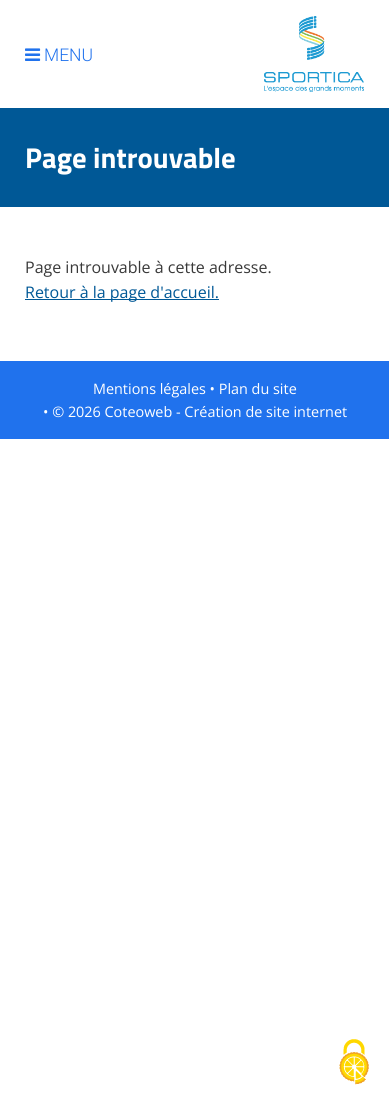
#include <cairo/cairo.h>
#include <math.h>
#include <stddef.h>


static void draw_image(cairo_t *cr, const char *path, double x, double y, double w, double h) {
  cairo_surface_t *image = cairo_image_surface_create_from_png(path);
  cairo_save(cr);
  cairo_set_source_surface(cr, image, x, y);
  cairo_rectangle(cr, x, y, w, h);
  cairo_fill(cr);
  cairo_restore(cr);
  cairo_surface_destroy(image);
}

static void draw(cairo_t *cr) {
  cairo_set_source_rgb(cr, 1, 1, 1);
  cairo_paint(cr);
  draw_image(cr, "images/1.png", 25, 48, 16, 13);
  draw_image(cr, "images/2.png", 264, 16, 100, 76);
  cairo_set_source_rgb(cr, 0, 88 / 255.0, 150 / 255.0);
  cairo_rectangle(cr, 0, 108, 389, 99);
  cairo_fill(cr);
  cairo_rectangle(cr, 25, 299, 194, 1);
  cairo_fill(cr);
  cairo_set_source_rgb(cr, 32 / 255.0, 114 / 255.0, 237 / 255.0);
  cairo_rectangle(cr, 0, 361, 389, 78);
  cairo_fill(cr);
  draw_image(cr, "images/3.png", 339, 1039, 30, 46);
  cairo_select_font_face(cr, "Roboto Light", CAIRO_FONT_SLANT_NORMAL, CAIRO_FONT_WEIGHT_NORMAL);
  cairo_set_font_size(cr, 17.5);
  cairo_move_to(cr, 44, 61);
  cairo_show_text(cr, "MENU");
  cairo_select_font_face(cr, "Titillium Web", CAIRO_FONT_SLANT_NORMAL, CAIRO_FONT_WEIGHT_BOLD);
  cairo_set_font_size(cr, 28.75);
  cairo_set_source_rgb(cr, 1, 1, 1);
  cairo_move_to(cr, 25, 168);
  cairo_show_text(cr, "Page introuvable");
  cairo_select_font_face(cr, "Open Sans", CAIRO_FONT_SLANT_NORMAL, CAIRO_FONT_WEIGHT_NORMAL);
  cairo_set_font_size(cr, 16);
  cairo_set_source_rgb(cr, 57 / 255.0, 57 / 255.0, 57 / 255.0);
  cairo_move_to(cr, 25, 273);
  cairo_show_text(cr, "Page introuvable à cette adresse.");
  cairo_set_source_rgb(cr, 0, 88 / 255.0, 150 / 255.0);
  cairo_move_to(cr, 25, 298);
  cairo_show_text(cr, "Retour à la page d'accueil.");
  cairo_set_font_size(cr, 14.4);
  cairo_set_source_rgb(cr, 1, 1, 1);
  cairo_move_to(cr, 93, 394);
  cairo_show_text(cr, "Mentions légales • Plan du site");
  cairo_move_to(cr, 43, 417);
  cairo_show_text(cr, "• © 2026 Coteoweb - Création de site internet");
}

int main(void) {
  cairo_surface_t *surface = cairo_image_surface_create(CAIRO_FORMAT_RGB24, 389, 1097);
  cairo_t *cr = cairo_create(surface);
  cairo_font_options_t *options = cairo_font_options_create();
  cairo_font_options_set_hint_metrics(options, CAIRO_HINT_METRICS_OFF);
  cairo_font_options_set_hint_style(options, CAIRO_HINT_STYLE_NONE);
  cairo_set_font_options(cr, options);
  cairo_set_miter_limit(cr, 4);
  draw(cr);
  cairo_surface_write_to_png(surface, "out.png");
  cairo_font_options_destroy(options);
  cairo_destroy(cr);
  cairo_surface_destroy(surface);
  return 0;
}
